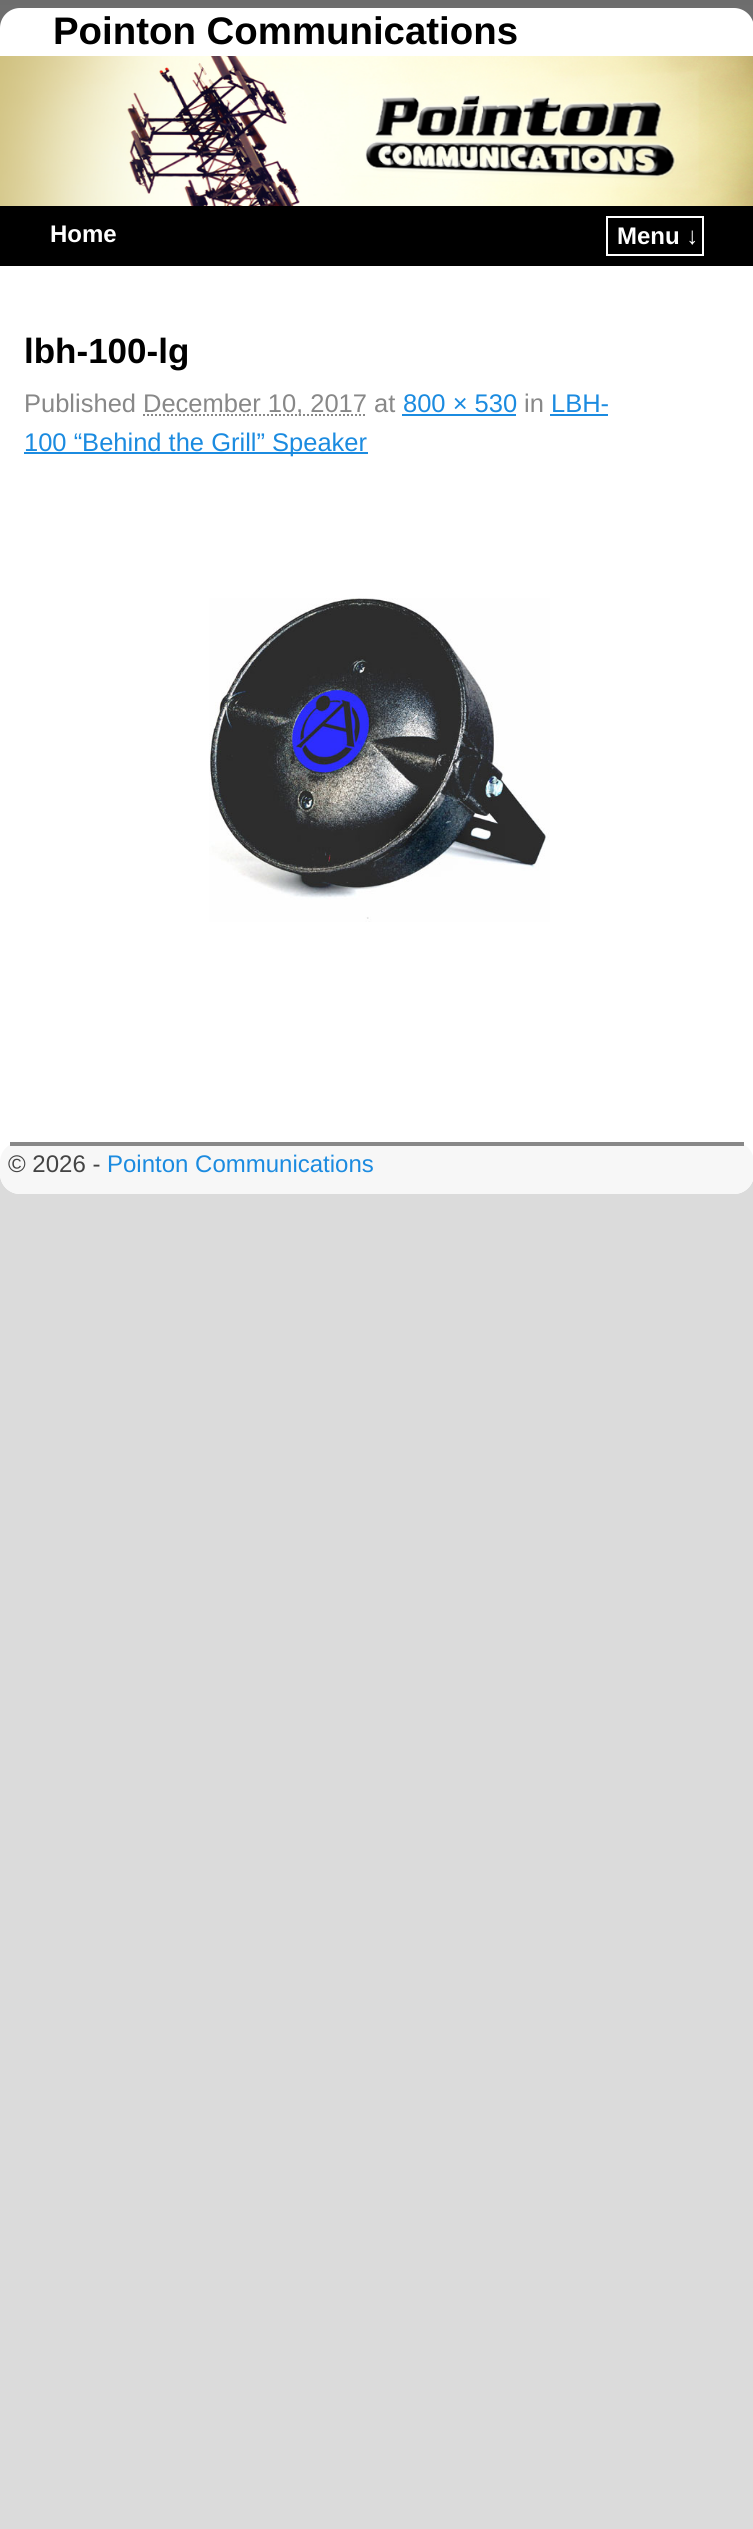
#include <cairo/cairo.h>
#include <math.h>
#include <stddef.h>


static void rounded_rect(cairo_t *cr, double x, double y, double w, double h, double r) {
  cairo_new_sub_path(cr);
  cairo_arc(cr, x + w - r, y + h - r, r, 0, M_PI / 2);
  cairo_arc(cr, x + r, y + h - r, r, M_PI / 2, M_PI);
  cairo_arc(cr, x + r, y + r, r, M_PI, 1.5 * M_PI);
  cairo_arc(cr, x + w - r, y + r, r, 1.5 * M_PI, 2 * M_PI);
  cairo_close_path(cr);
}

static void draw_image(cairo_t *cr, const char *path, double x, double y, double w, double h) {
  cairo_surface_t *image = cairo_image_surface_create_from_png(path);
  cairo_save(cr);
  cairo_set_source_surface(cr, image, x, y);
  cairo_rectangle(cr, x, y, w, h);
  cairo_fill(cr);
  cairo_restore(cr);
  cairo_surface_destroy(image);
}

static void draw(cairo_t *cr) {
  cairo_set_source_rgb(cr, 219 / 255.0, 219 / 255.0, 219 / 255.0);
  cairo_paint(cr);
  draw_image(cr, "images/1.png", 0, 0, 753, 28);
  cairo_set_source_rgb(cr, 1, 1, 1);
  rounded_rect(cr, 0, 8, 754, 1186, 20);
  cairo_fill(cr);
  draw_image(cr, "images/2.png", 0, 56, 753, 150);
  cairo_set_source_rgb(cr, 0, 0, 0);
  cairo_rectangle(cr, 0, 206, 753, 60);
  cairo_fill(cr);
  cairo_rectangle(cr, 607, 217, 96, 38);
  cairo_set_source_rgb(cr, 1, 1, 1);
  cairo_stroke(cr);
  cairo_new_path(cr);
  cairo_move_to(cr, 143, 415);
  cairo_line_to(cr, 367, 415);
  cairo_set_source_rgb(cr, 136 / 255.0, 136 / 255.0, 136 / 255.0);
  cairo_set_dash(cr, (double[]){2, 2}, 2, 0);
  cairo_stroke(cr);
  cairo_set_source_rgb(cr, 27 / 255.0, 139 / 255.0, 224 / 255.0);
  cairo_rectangle(cr, 402, 414, 114, 2);
  cairo_fill(cr);
  cairo_rectangle(cr, 550, 414, 58, 2);
  cairo_fill(cr);
  cairo_rectangle(cr, 24, 452, 344, 2);
  cairo_fill(cr);
  draw_image(cr, "images/3.png", 209, 598, 341, 324);
  cairo_set_source_rgb(cr, 247 / 255.0, 247 / 255.0, 247 / 255.0);
  rounded_rect(cr, 0, 1142, 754, 52, 20);
  cairo_fill(cr);
  cairo_set_source_rgb(cr, 136 / 255.0, 136 / 255.0, 136 / 255.0);
  cairo_rectangle(cr, 10, 1142, 734, 4);
  cairo_fill(cr);
  cairo_select_font_face(cr, "Liberation Sans", CAIRO_FONT_SLANT_NORMAL, CAIRO_FONT_WEIGHT_BOLD);
  cairo_set_font_size(cr, 38.4);
  cairo_set_source_rgb(cr, 0, 0, 0);
  cairo_move_to(cr, 53, 44);
  cairo_show_text(cr, "Pointon Communications");
  cairo_set_font_size(cr, 24);
  cairo_set_source_rgb(cr, 1, 1, 1);
  cairo_move_to(cr, 50, 242);
  cairo_show_text(cr, "Home");
  cairo_move_to(cr, 617, 244);
  cairo_show_text(cr, "Menu ↓");
  cairo_set_font_size(cr, 35);
  cairo_set_source_rgb(cr, 0, 0, 0);
  cairo_move_to(cr, 24, 363);
  cairo_show_text(cr, "lbh-100-lg");
  cairo_select_font_face(cr, "Liberation Sans", CAIRO_FONT_SLANT_NORMAL, CAIRO_FONT_WEIGHT_NORMAL);
  cairo_set_font_size(cr, 25.5);
  cairo_set_source_rgb(cr, 136 / 255.0, 136 / 255.0, 136 / 255.0);
  cairo_move_to(cr, 24, 412);
  cairo_show_text(cr, "Published");
  cairo_move_to(cr, 143, 412);
  cairo_show_text(cr, "December 10, 2017 at");
  cairo_set_source_rgb(cr, 27 / 255.0, 139 / 255.0, 224 / 255.0);
  cairo_move_to(cr, 403, 412);
  cairo_show_text(cr, "800 × 530");
  cairo_set_source_rgb(cr, 136 / 255.0, 136 / 255.0, 136 / 255.0);
  cairo_move_to(cr, 524, 412);
  cairo_show_text(cr, "in");
  cairo_set_source_rgb(cr, 27 / 255.0, 139 / 255.0, 224 / 255.0);
  cairo_move_to(cr, 551, 412);
  cairo_show_text(cr, "LBH-");
  cairo_move_to(cr, 24, 451);
  cairo_show_text(cr, "100 “Behind the Grill” Speaker");
  cairo_set_font_size(cr, 24);
  cairo_set_source_rgb(cr, 68 / 255.0, 68 / 255.0, 68 / 255.0);
  cairo_move_to(cr, 8, 1172);
  cairo_show_text(cr, "© 2026 -");
  cairo_set_source_rgb(cr, 27 / 255.0, 139 / 255.0, 224 / 255.0);
  cairo_move_to(cr, 107, 1172);
  cairo_show_text(cr, "Pointon Communications");
}

int main(void) {
  cairo_surface_t *surface = cairo_image_surface_create(CAIRO_FORMAT_RGB24, 753, 2529);
  cairo_t *cr = cairo_create(surface);
  cairo_font_options_t *options = cairo_font_options_create();
  cairo_font_options_set_hint_metrics(options, CAIRO_HINT_METRICS_OFF);
  cairo_font_options_set_hint_style(options, CAIRO_HINT_STYLE_NONE);
  cairo_set_font_options(cr, options);
  cairo_set_miter_limit(cr, 4);
  draw(cr);
  cairo_surface_write_to_png(surface, "out.png");
  cairo_font_options_destroy(options);
  cairo_destroy(cr);
  cairo_surface_destroy(surface);
  return 0;
}
